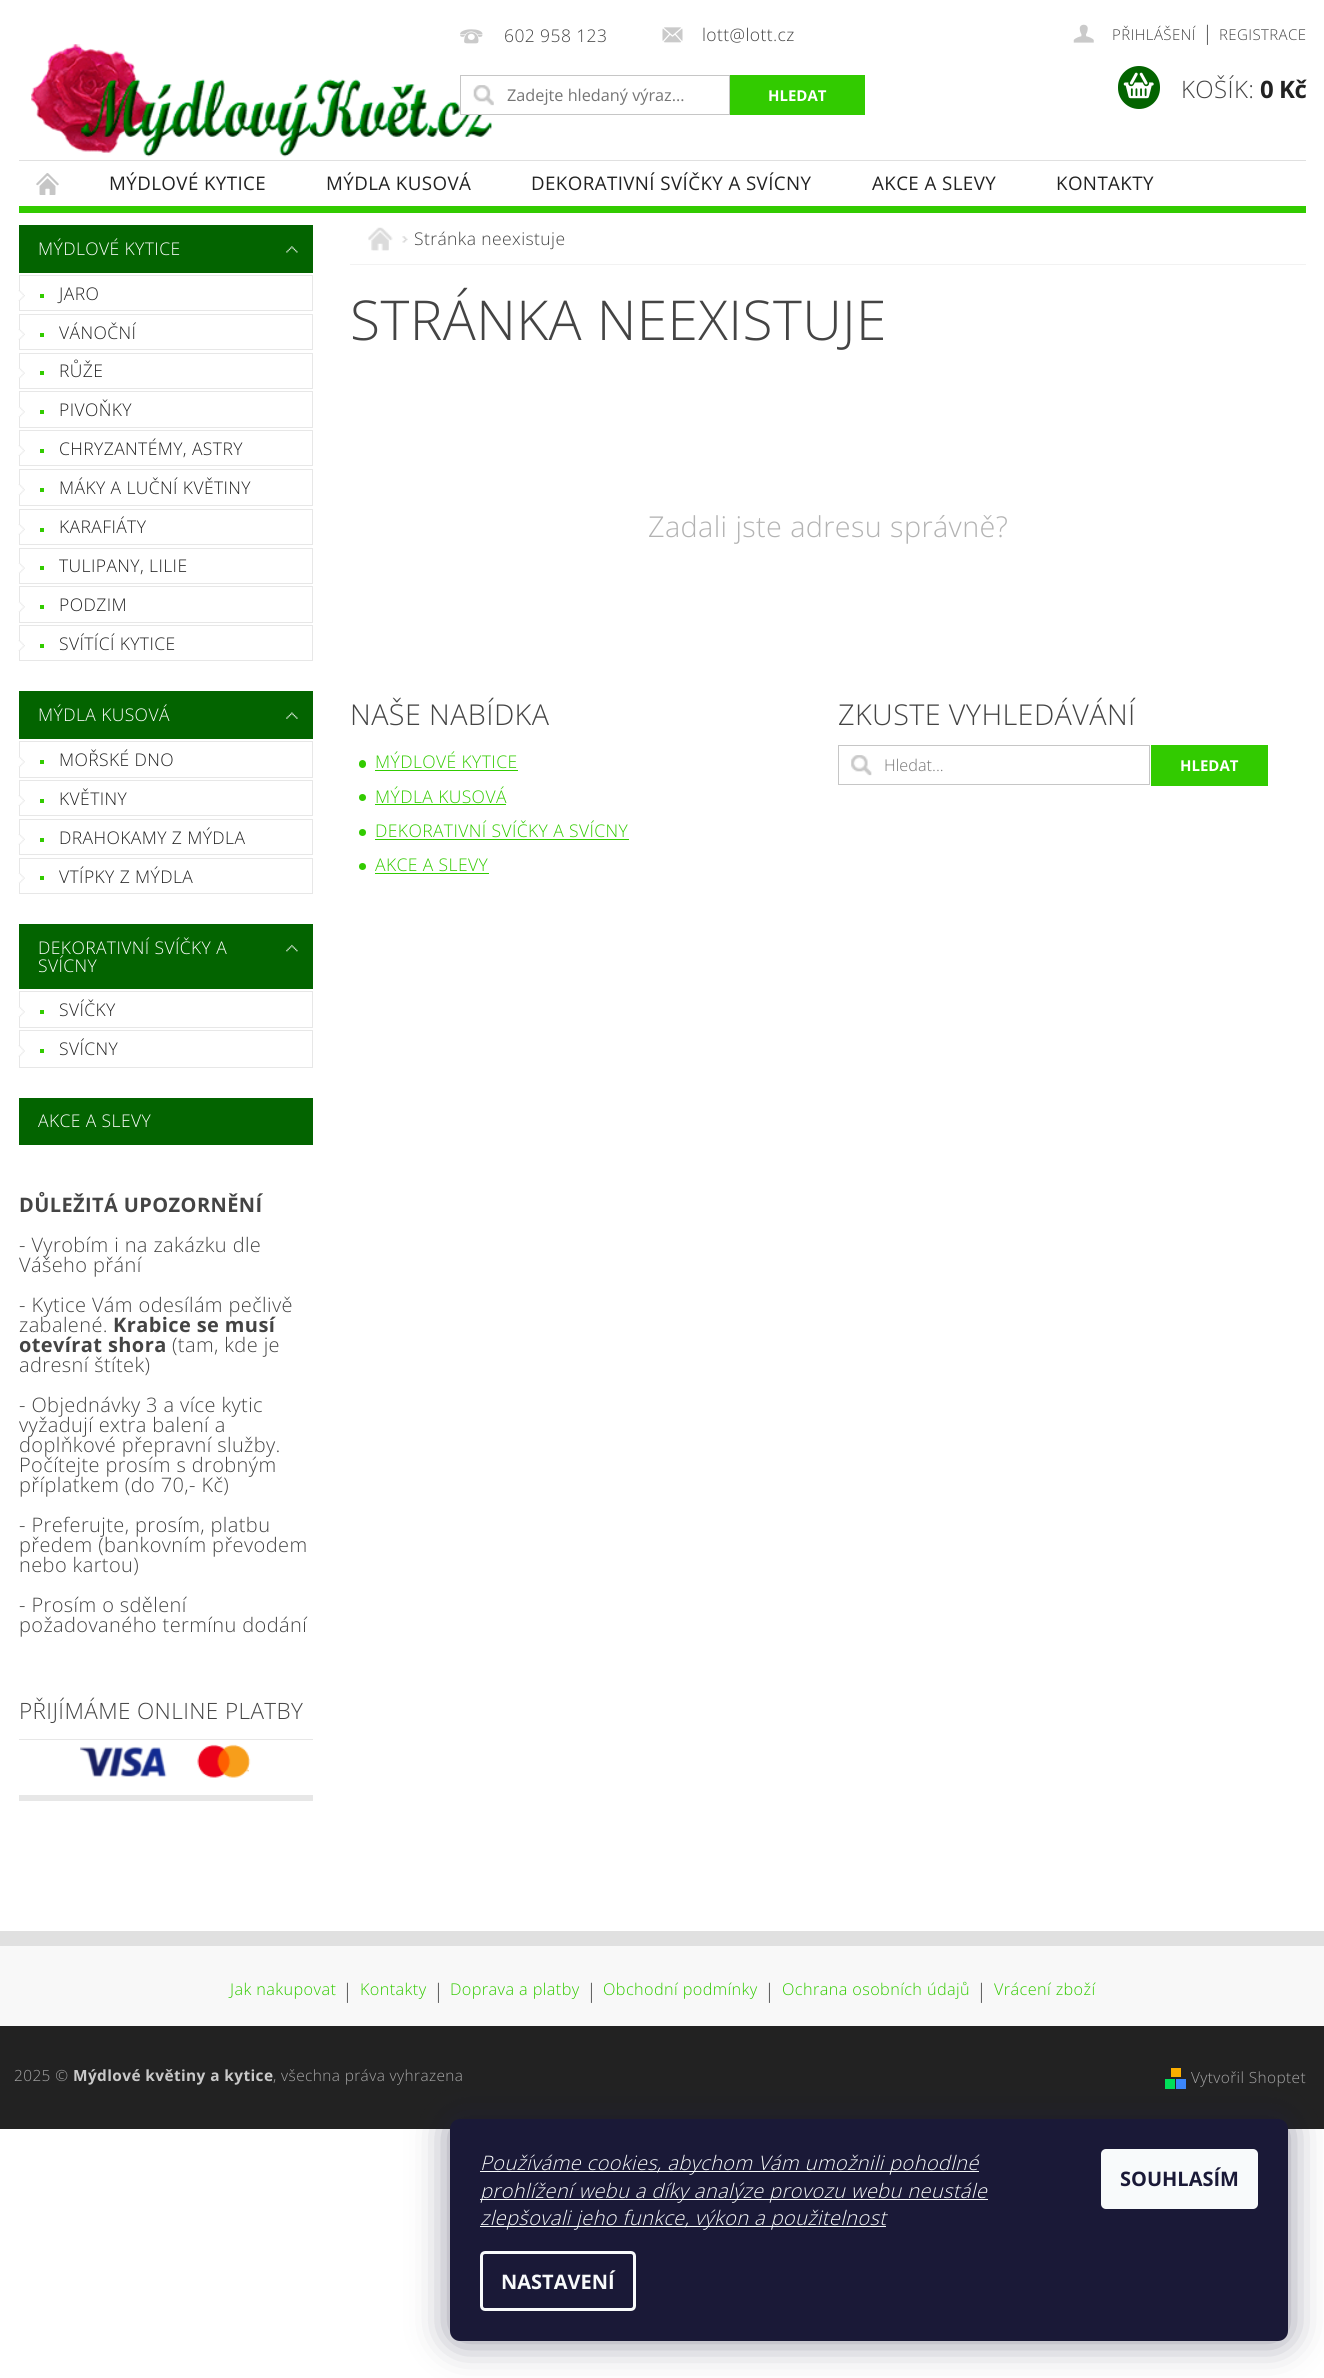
#include <cairo/cairo.h>
#include <math.h>
#include <stddef.h>


static void draw_spaced(cairo_t *cr, double x, double y, const char *s, double letter, double word) {
  cairo_move_to(cr, x, y);
  while (*s) {
    char ch[5] = {0};
    int n = 0;
    do ch[n++] = *s++; while ((*s & 0xC0) == 0x80);
    cairo_show_text(cr, ch);
    cairo_rel_move_to(cr, letter + word * (*ch == ' '), 0);
  }
}

static void rounded_rect(cairo_t *cr, double x, double y, double w, double h, double r) {
  cairo_new_sub_path(cr);
  cairo_arc(cr, x + w - r, y + h - r, r, 0, M_PI / 2);
  cairo_arc(cr, x + r, y + h - r, r, M_PI / 2, M_PI);
  cairo_arc(cr, x + r, y + r, r, M_PI, 1.5 * M_PI);
  cairo_arc(cr, x + w - r, y + r, r, 1.5 * M_PI, 2 * M_PI);
  cairo_close_path(cr);
}

static void draw_shadow(cairo_t *cr, double x, double y, double w, double h, double r, double blur, double alpha) {
  cairo_push_group_with_content(cr, CAIRO_CONTENT_ALPHA);
  cairo_set_operator(cr, CAIRO_OPERATOR_SOURCE);
  for (int i = 15; i >= -15 && fmin(w, h) + blur * i / 3 > 0; i -= 2) {
    double e = blur * i / 6;
    cairo_set_source_rgba(cr, 0, 0, 0, alpha * erfc((i - 1) / 8.5) / 2);
    rounded_rect(cr, x - e, y - e, w + 2 * e, h + 2 * e, fmax(0, fmin(r + e + blur * .6, fmin(w, h) / 2 + e)));
    cairo_fill(cr);
  }
  cairo_pattern_t *soft = cairo_pop_group(cr);
  cairo_mask(cr, soft);
  cairo_pattern_destroy(soft);
}

static void draw_image(cairo_t *cr, const char *path, double x, double y, double w, double h) {
  cairo_surface_t *image = cairo_image_surface_create_from_png(path);
  cairo_save(cr);
  cairo_set_source_surface(cr, image, x, y);
  cairo_rectangle(cr, x, y, w, h);
  cairo_fill(cr);
  cairo_restore(cr);
  cairo_surface_destroy(image);
}

static void draw(cairo_t *cr) {
  cairo_set_source_rgb(cr, 1, 1, 1);
  cairo_paint(cr);
  cairo_set_source_rgb(cr, 50 / 255.0, 203 / 255.0, 0);
  cairo_rectangle(cr, 19, 206, 1287, 7);
  cairo_fill(cr);
  draw_image(cr, "images/1.png", 31, 44, 461, 113);
  draw_image(cr, "images/2.png", 460, 29, 23, 15);
  draw_image(cr, "images/3.png", 662, 27, 21, 16);
  cairo_set_source_rgb(cr, 1, 1, 1);
  cairo_rectangle(cr, 465, 102, 24, 12);
  cairo_fill(cr);
  draw_image(cr, "images/4.png", 473, 85, 21, 21);
  cairo_rectangle(cr, 460.5, 75.5, 269, 39);
  cairo_set_source_rgb(cr, 198 / 255.0, 198 / 255.0, 198 / 255.0);
  cairo_set_line_width(cr, 1);
  cairo_stroke(cr);
  cairo_set_source_rgb(cr, 50 / 255.0, 203 / 255.0, 0);
  cairo_rectangle(cr, 730, 75, 135, 40);
  cairo_fill(cr);
  draw_image(cr, "images/5.png", 1073, 24, 21, 19);
  cairo_set_source_rgb(cr, 3 / 255.0, 100 / 255.0, 0);
  rounded_rect(cr, 1118, 66, 42, 43, 21);
  cairo_fill(cr);
  draw_image(cr, "images/6.png", 1123, 72, 31, 27);
  cairo_set_source_rgb(cr, 224 / 255.0, 224 / 255.0, 224 / 255.0);
  cairo_rectangle(cr, 19, 160, 1287, 1);
  cairo_fill(cr);
  draw_image(cr, "images/7.png", 36, 173, 23, 22);
  cairo_set_source_rgb(cr, 3 / 255.0, 100 / 255.0, 0);
  cairo_rectangle(cr, 19, 225, 294, 48);
  cairo_fill(cr);
  draw_image(cr, "images/8.png", 286, 246, 12, 7);
  cairo_rectangle(cr, 19.5, 275.5, 293, 35);
  cairo_set_source_rgb(cr, 231 / 255.0, 231 / 255.0, 231 / 255.0);
  cairo_stroke(cr);
  draw_image(cr, "images/9.png", 18, 290, 7, 11);
  cairo_set_source_rgb(cr, 50 / 255.0, 203 / 255.0, 0);
  cairo_rectangle(cr, 40, 294, 4, 4);
  cairo_fill(cr);
  cairo_rectangle(cr, 19.5, 314.5, 293, 35);
  cairo_set_source_rgb(cr, 231 / 255.0, 231 / 255.0, 231 / 255.0);
  cairo_stroke(cr);
  draw_image(cr, "images/10.png", 18, 329, 7, 11);
  cairo_set_source_rgb(cr, 50 / 255.0, 203 / 255.0, 0);
  cairo_rectangle(cr, 40, 333, 4, 4);
  cairo_fill(cr);
  cairo_rectangle(cr, 19.5, 353.5, 293, 35);
  cairo_set_source_rgb(cr, 231 / 255.0, 231 / 255.0, 231 / 255.0);
  cairo_stroke(cr);
  draw_image(cr, "images/11.png", 18, 368, 7, 10);
  cairo_set_source_rgb(cr, 50 / 255.0, 203 / 255.0, 0);
  cairo_rectangle(cr, 40, 371, 4, 4);
  cairo_fill(cr);
  cairo_rectangle(cr, 19.5, 391.5, 293, 36);
  cairo_set_source_rgb(cr, 231 / 255.0, 231 / 255.0, 231 / 255.0);
  cairo_stroke(cr);
  draw_image(cr, "images/12.png", 18, 407, 7, 10);
  cairo_set_source_rgb(cr, 50 / 255.0, 203 / 255.0, 0);
  cairo_rectangle(cr, 40, 410, 4, 4);
  cairo_fill(cr);
  cairo_rectangle(cr, 19.5, 430.5, 293, 35);
  cairo_set_source_rgb(cr, 231 / 255.0, 231 / 255.0, 231 / 255.0);
  cairo_stroke(cr);
  draw_image(cr, "images/9.png", 18, 445, 7, 11);
  cairo_set_source_rgb(cr, 50 / 255.0, 203 / 255.0, 0);
  cairo_rectangle(cr, 40, 449, 4, 4);
  cairo_fill(cr);
  cairo_rectangle(cr, 19.5, 469.5, 293, 36);
  cairo_set_source_rgb(cr, 231 / 255.0, 231 / 255.0, 231 / 255.0);
  cairo_stroke(cr);
  draw_image(cr, "images/13.png", 18, 484, 7, 11);
  cairo_set_source_rgb(cr, 50 / 255.0, 203 / 255.0, 0);
  cairo_rectangle(cr, 40, 488, 4, 4);
  cairo_fill(cr);
  cairo_rectangle(cr, 19.5, 509.5, 293, 35);
  cairo_set_source_rgb(cr, 231 / 255.0, 231 / 255.0, 231 / 255.0);
  cairo_stroke(cr);
  draw_image(cr, "images/10.png", 18, 524, 7, 11);
  cairo_set_source_rgb(cr, 50 / 255.0, 203 / 255.0, 0);
  cairo_rectangle(cr, 40, 528, 4, 4);
  cairo_fill(cr);
  cairo_rectangle(cr, 19.5, 548.5, 293, 35);
  cairo_set_source_rgb(cr, 231 / 255.0, 231 / 255.0, 231 / 255.0);
  cairo_stroke(cr);
  draw_image(cr, "images/11.png", 18, 563, 7, 10);
  cairo_set_source_rgb(cr, 50 / 255.0, 203 / 255.0, 0);
  cairo_rectangle(cr, 40, 566, 4, 4);
  cairo_fill(cr);
  cairo_rectangle(cr, 19.5, 586.5, 293, 36);
  cairo_set_source_rgb(cr, 231 / 255.0, 231 / 255.0, 231 / 255.0);
  cairo_stroke(cr);
  draw_image(cr, "images/12.png", 18, 602, 7, 10);
  cairo_set_source_rgb(cr, 50 / 255.0, 203 / 255.0, 0);
  cairo_rectangle(cr, 40, 605, 4, 4);
  cairo_fill(cr);
  cairo_rectangle(cr, 19.5, 625.5, 293, 35);
  cairo_set_source_rgb(cr, 231 / 255.0, 231 / 255.0, 231 / 255.0);
  cairo_stroke(cr);
  draw_image(cr, "images/9.png", 18, 640, 7, 11);
  cairo_set_source_rgb(cr, 50 / 255.0, 203 / 255.0, 0);
  cairo_rectangle(cr, 40, 644, 4, 4);
  cairo_fill(cr);
  cairo_set_source_rgb(cr, 3 / 255.0, 100 / 255.0, 0);
  cairo_rectangle(cr, 19, 691, 294, 48);
  cairo_fill(cr);
  draw_image(cr, "images/14.png", 286, 712, 12, 7);
  cairo_rectangle(cr, 19.5, 741.5, 293, 36);
  cairo_set_source_rgb(cr, 231 / 255.0, 231 / 255.0, 231 / 255.0);
  cairo_stroke(cr);
  draw_image(cr, "images/12.png", 18, 757, 7, 10);
  cairo_set_source_rgb(cr, 50 / 255.0, 203 / 255.0, 0);
  cairo_rectangle(cr, 40, 760, 4, 4);
  cairo_fill(cr);
  cairo_rectangle(cr, 19.5, 780.5, 293, 35);
  cairo_set_source_rgb(cr, 231 / 255.0, 231 / 255.0, 231 / 255.0);
  cairo_stroke(cr);
  draw_image(cr, "images/9.png", 18, 795, 7, 11);
  cairo_set_source_rgb(cr, 50 / 255.0, 203 / 255.0, 0);
  cairo_rectangle(cr, 40, 799, 4, 4);
  cairo_fill(cr);
  cairo_rectangle(cr, 19.5, 819.5, 293, 35);
  cairo_set_source_rgb(cr, 231 / 255.0, 231 / 255.0, 231 / 255.0);
  cairo_stroke(cr);
  draw_image(cr, "images/10.png", 18, 834, 7, 11);
  cairo_set_source_rgb(cr, 50 / 255.0, 203 / 255.0, 0);
  cairo_rectangle(cr, 40, 838, 4, 4);
  cairo_fill(cr);
  cairo_rectangle(cr, 19.5, 858.5, 293, 35);
  cairo_set_source_rgb(cr, 231 / 255.0, 231 / 255.0, 231 / 255.0);
  cairo_stroke(cr);
  draw_image(cr, "images/11.png", 18, 873, 7, 10);
  cairo_set_source_rgb(cr, 50 / 255.0, 203 / 255.0, 0);
  cairo_rectangle(cr, 40, 876, 4, 4);
  cairo_fill(cr);
  cairo_set_source_rgb(cr, 3 / 255.0, 100 / 255.0, 0);
  cairo_rectangle(cr, 19, 924, 294, 65);
  cairo_fill(cr);
  draw_image(cr, "images/15.png", 286, 944, 12, 8);
  cairo_rectangle(cr, 19.5, 991.5, 293, 36);
  cairo_set_source_rgb(cr, 231 / 255.0, 231 / 255.0, 231 / 255.0);
  cairo_stroke(cr);
  draw_image(cr, "images/12.png", 18, 1007, 7, 10);
  cairo_set_source_rgb(cr, 50 / 255.0, 203 / 255.0, 0);
  cairo_rectangle(cr, 40, 1010, 4, 4);
  cairo_fill(cr);
  cairo_rectangle(cr, 19.5, 1030.5, 293, 37);
  cairo_set_source_rgb(cr, 231 / 255.0, 231 / 255.0, 231 / 255.0);
  cairo_stroke(cr);
  draw_image(cr, "images/16.png", 18, 1045, 7, 12);
  cairo_set_source_rgb(cr, 50 / 255.0, 203 / 255.0, 0);
  cairo_rectangle(cr, 40, 1049, 4, 4);
  cairo_fill(cr);
  cairo_set_source_rgb(cr, 3 / 255.0, 100 / 255.0, 0);
  cairo_rectangle(cr, 19, 1098, 294, 47);
  cairo_fill(cr);
  cairo_set_source_rgb(cr, 231 / 255.0, 231 / 255.0, 231 / 255.0);
  cairo_rectangle(cr, 19, 1795, 294, 6);
  cairo_fill(cr);
  cairo_rectangle(cr, 19, 1739, 294, 1);
  cairo_fill(cr);
  draw_image(cr, "images/17.png", 80, 1744, 171, 34);
  cairo_set_source_rgb(cr, 242 / 255.0, 242 / 255.0, 242 / 255.0);
  cairo_rectangle(cr, 350, 264, 956, 1);
  cairo_fill(cr);
  draw_image(cr, "images/18.png", 368, 227, 25, 24);
  draw_image(cr, "images/19.png", 402, 236, 6, 7);
  cairo_set_source_rgb(cr, 50 / 255.0, 203 / 255.0, 0);
  rounded_rect(cr, 359, 760, 7, 8, 3.5);
  cairo_fill(cr);
  cairo_rectangle(cr, 375, 770, 143, 1);
  cairo_fill(cr);
  cairo_arc(cr, 362.5, 797.5, 3.5, 0, 2 * M_PI);
  cairo_fill(cr);
  cairo_rectangle(cr, 375, 804, 131, 1);
  cairo_fill(cr);
  cairo_arc(cr, 362.5, 832.5, 3.5, 0, 2 * M_PI);
  cairo_fill(cr);
  cairo_rectangle(cr, 375, 839, 254, 1);
  cairo_fill(cr);
  cairo_arc(cr, 362.5, 866.5, 3.5, 0, 2 * M_PI);
  cairo_fill(cr);
  cairo_rectangle(cr, 375, 873, 114, 1);
  cairo_fill(cr);
  draw_image(cr, "images/20.png", 851, 755, 21, 21);
  cairo_rectangle(cr, 838.5, 745.5, 311, 39);
  cairo_set_source_rgb(cr, 198 / 255.0, 198 / 255.0, 198 / 255.0);
  cairo_stroke(cr);
  cairo_set_source_rgb(cr, 50 / 255.0, 203 / 255.0, 0);
  cairo_rectangle(cr, 1151, 745, 117, 41);
  cairo_fill(cr);
  cairo_set_source_rgb(cr, 248 / 255.0, 248 / 255.0, 248 / 255.0);
  cairo_rectangle(cr, 0, 1946, 1324, 80);
  cairo_fill(cr);
  cairo_set_source_rgb(cr, 224 / 255.0, 224 / 255.0, 224 / 255.0);
  cairo_rectangle(cr, 0, 1931, 1324, 15);
  cairo_fill(cr);
  cairo_set_source_rgb(cr, 34 / 255.0, 34 / 255.0, 34 / 255.0);
  cairo_rectangle(cr, 0, 2026, 1324, 103);
  cairo_fill(cr);
  cairo_set_source_rgb(cr, 252 / 255.0, 175 / 255.0, 0);
  cairo_rectangle(cr, 1171, 2068, 10, 9);
  cairo_fill(cr);
  cairo_set_source_rgb(cr, 0, 226 / 255.0, 90 / 255.0);
  cairo_rectangle(cr, 1165, 2079, 10, 10);
  cairo_fill(cr);
  cairo_set_source_rgb(cr, 59 / 255.0, 136 / 255.0, 1);
  cairo_rectangle(cr, 1176, 2079, 10, 10);
  cairo_fill(cr);
  cairo_set_source_rgb(cr, 27 / 255.0, 25 / 255.0, 57 / 255.0);
  draw_shadow(cr, 450, 2119, 838, 222, 10, 19, 0.5);
  cairo_set_source_rgb(cr, 26 / 255.0, 25 / 255.0, 55 / 255.0);
  rounded_rect(cr, 450, 2119, 838, 222, 10);
  cairo_fill(cr);
  cairo_set_source_rgb(cr, 248 / 255.0, 250 / 255.0, 251 / 255.0);
  cairo_rectangle(cr, 480, 2171, 499, 1);
  cairo_fill(cr);
  cairo_rectangle(cr, 480, 2199, 508, 1);
  cairo_fill(cr);
  cairo_rectangle(cr, 480, 2226, 406, 1);
  cairo_fill(cr);
  rounded_rect(cr, 481.5, 2252.5, 153, 57, 3.5);
  cairo_set_line_width(cr, 3);
  cairo_stroke(cr);
  rounded_rect(cr, 1101, 2149, 157, 60, 5);
  cairo_fill(cr);
  cairo_select_font_face(cr, "Open Sans Light", CAIRO_FONT_SLANT_NORMAL, CAIRO_FONT_WEIGHT_NORMAL);
  cairo_set_font_size(cr, 17.5);
  cairo_set_source_rgb(cr, 68 / 255.0, 68 / 255.0, 68 / 255.0);
  draw_spaced(cr, 504, 42, "602 958 123", 0.4, 0);
  draw_spaced(cr, 702, 41, "lott@lott.cz", 0.4, 0);
  cairo_select_font_face(cr, "Open Sans", CAIRO_FONT_SLANT_NORMAL, CAIRO_FONT_WEIGHT_NORMAL);
  cairo_set_font_size(cr, 16.25);
  cairo_set_source_rgb(cr, 117 / 255.0, 117 / 255.0, 117 / 255.0);
  cairo_move_to(cr, 507, 101);
  cairo_show_text(cr, "Zadejte hledaný výraz...");
  cairo_select_font_face(cr, "Open Sans", CAIRO_FONT_SLANT_NORMAL, CAIRO_FONT_WEIGHT_BOLD);
  cairo_set_font_size(cr, 15);
  cairo_set_source_rgb(cr, 1, 1, 1);
  cairo_move_to(cr, 768, 101);
  cairo_show_text(cr, "HLEDAT");
  cairo_select_font_face(cr, "Open Sans Light", CAIRO_FONT_SLANT_NORMAL, CAIRO_FONT_WEIGHT_NORMAL);
  cairo_set_source_rgb(cr, 68 / 255.0, 68 / 255.0, 68 / 255.0);
  draw_spaced(cr, 1112, 40, "PŘIHLÁŠENÍ", 0.4, 0);
  cairo_set_font_size(cr, 20);
  draw_spaced(cr, 1202, 40, "|", 0.4, 0);
  cairo_set_font_size(cr, 15);
  draw_spaced(cr, 1219, 40, "REGISTRACE", 0.4, 0);
  cairo_set_font_size(cr, 24);
  draw_spaced(cr, 1181, 98, "KOŠÍK:", 0.4, 0);
  cairo_select_font_face(cr, "Open Sans", CAIRO_FONT_SLANT_NORMAL, CAIRO_FONT_WEIGHT_BOLD);
  cairo_set_source_rgb(cr, 34 / 255.0, 34 / 255.0, 34 / 255.0);
  draw_spaced(cr, 1260, 98, "0 Kč", -0.5, 0);
  cairo_select_font_face(cr, "Open Sans", CAIRO_FONT_SLANT_NORMAL, CAIRO_FONT_WEIGHT_NORMAL);
  cairo_set_font_size(cr, 18.75);
  draw_spaced(cr, 109, 190, "MÝDLOVÉ KYTICE", 0.4, 0);
  draw_spaced(cr, 326, 190, "MÝDLA KUSOVÁ", 0.4, 0);
  draw_spaced(cr, 531, 190, "DEKORATIVNÍ SVÍČKY A SVÍCNY", 0.4, 0);
  draw_spaced(cr, 872, 190, "AKCE A SLEVY", 0.4, 0);
  draw_spaced(cr, 1056, 190, "KONTAKTY", 0.4, 0);
  cairo_select_font_face(cr, "Open Sans Light", CAIRO_FONT_SLANT_NORMAL, CAIRO_FONT_WEIGHT_NORMAL);
  cairo_set_font_size(cr, 17.5);
  cairo_set_source_rgb(cr, 1, 1, 1);
  draw_spaced(cr, 38, 255, "MÝDLOVÉ KYTICE", 0.4, 0);
  cairo_set_source_rgb(cr, 34 / 255.0, 34 / 255.0, 34 / 255.0);
  draw_spaced(cr, 59, 300, "JARO", 0.4, 0);
  draw_spaced(cr, 59, 339, "VÁNOČNÍ", 0.4, 0);
  draw_spaced(cr, 59, 377, "RŮŽE", 0.4, 0);
  draw_spaced(cr, 59, 416, "PIVOŇKY", 0.4, 0);
  draw_spaced(cr, 59, 455, "CHRYZANTÉMY, ASTRY", 0.4, 0);
  draw_spaced(cr, 59, 494, "MÁKY A LUČNÍ KVĚTINY", 0.4, 0);
  draw_spaced(cr, 59, 533, "KARAFIÁTY", 0.4, 0);
  draw_spaced(cr, 59, 572, "TULIPANY, LILIE", 0.4, 0);
  draw_spaced(cr, 59, 611, "PODZIM", 0.4, 0);
  draw_spaced(cr, 59, 650, "SVÍTÍCÍ KYTICE", 0.4, 0);
  cairo_set_source_rgb(cr, 1, 1, 1);
  draw_spaced(cr, 38, 721, "MÝDLA KUSOVÁ", 0.4, 0);
  cairo_set_source_rgb(cr, 34 / 255.0, 34 / 255.0, 34 / 255.0);
  draw_spaced(cr, 59, 766, "MOŘSKÉ DNO", 0.4, 0);
  draw_spaced(cr, 59, 805, "KVĚTINY", 0.4, 0);
  draw_spaced(cr, 59, 844, "DRAHOKAMY Z MÝDLA", 0.4, 0);
  draw_spaced(cr, 59, 883, "VTÍPKY Z MÝDLA", 0.4, 0);
  cairo_set_source_rgb(cr, 1, 1, 1);
  draw_spaced(cr, 38, 954, "DEKORATIVNÍ SVÍČKY A", 0.4, 0);
  draw_spaced(cr, 38, 972, "SVÍCNY", 0.4, 0);
  cairo_set_source_rgb(cr, 34 / 255.0, 34 / 255.0, 34 / 255.0);
  draw_spaced(cr, 59, 1016, "SVÍČKY", 0.4, 0);
  draw_spaced(cr, 59, 1055, "SVÍCNY", 0.4, 0);
  cairo_set_source_rgb(cr, 1, 1, 1);
  draw_spaced(cr, 38, 1127, "AKCE A SLEVY", 0.4, 0);
  cairo_select_font_face(cr, "Open Sans", CAIRO_FONT_SLANT_NORMAL, CAIRO_FONT_WEIGHT_BOLD);
  cairo_set_font_size(cr, 20);
  cairo_set_source_rgb(cr, 68 / 255.0, 68 / 255.0, 68 / 255.0);
  draw_spaced(cr, 19, 1212, "DŮLEŽITÁ UPOZORNĚNÍ", 0.4, 0);
  cairo_select_font_face(cr, "Open Sans Light", CAIRO_FONT_SLANT_NORMAL, CAIRO_FONT_WEIGHT_NORMAL);
  draw_spaced(cr, 19, 1252, "- Vyrobím i na zakázku dle", 0.4, 0);
  draw_spaced(cr, 19, 1272, "Vášeho přání", 0.4, 0);
  draw_spaced(cr, 19, 1312, "- Kytice Vám odesílám pečlivě", 0.4, 0);
  draw_spaced(cr, 19, 1332, "zabalené.", 0.4, 0);
  cairo_select_font_face(cr, "Open Sans", CAIRO_FONT_SLANT_NORMAL, CAIRO_FONT_WEIGHT_BOLD);
  draw_spaced(cr, 113, 1332, "Krabice se musí", 0.4, 0);
  draw_spaced(cr, 19, 1352, "otevírat shora", 0.4, 0);
  cairo_select_font_face(cr, "Open Sans Light", CAIRO_FONT_SLANT_NORMAL, CAIRO_FONT_WEIGHT_NORMAL);
  draw_spaced(cr, 172, 1352, "(tam, kde je", 0.4, 0);
  draw_spaced(cr, 19, 1372, "adresní štítek)", 0.4, 0);
  draw_spaced(cr, 19, 1412, "- Objednávky 3 a více kytic", 0.4, 0);
  draw_spaced(cr, 19, 1432, "vyžadují extra balení a", 0.4, 0);
  draw_spaced(cr, 19, 1452, "doplňkové přepravní služby.", 0.4, 0);
  draw_spaced(cr, 19, 1472, "Počítejte prosím s drobným", 0.4, 0);
  draw_spaced(cr, 19, 1492, "příplatkem (do 70,- Kč)", 0.4, 0);
  draw_spaced(cr, 19, 1532, "- Preferujte, prosím, platbu", 0.4, 0);
  draw_spaced(cr, 19, 1552, "předem (bankovním převodem", 0.4, 0);
  draw_spaced(cr, 19, 1572, "nebo kartou)", 0.4, 0);
  draw_spaced(cr, 19, 1612, "- Prosím o sdělení", 0.4, 0);
  draw_spaced(cr, 19, 1632, "požadovaného termínu dodání", 0.4, 0);
  cairo_set_font_size(cr, 22.5);
  draw_spaced(cr, 19, 1719, "PŘIJÍMÁME ONLINE PLATBY", 0.4, 0);
  cairo_set_font_size(cr, 17.5);
  draw_spaced(cr, 414, 245, "Stránka neexistuje", 0.4, 0);
  cairo_set_font_size(cr, 55);
  draw_spaced(cr, 350, 340, "STRÁNKA NEEXISTUJE", 0.4, 0);
  cairo_set_font_size(cr, 28.75);
  cairo_set_source_rgb(cr, 179 / 255.0, 179 / 255.0, 179 / 255.0);
  draw_spaced(cr, 648, 537, "Zadali jste adresu správně?", 0.4, 0);
  cairo_set_source_rgb(cr, 68 / 255.0, 68 / 255.0, 68 / 255.0);
  draw_spaced(cr, 350, 725, "NAŠE NABÍDKA", 0.4, 0);
  cairo_set_font_size(cr, 17.5);
  cairo_set_source_rgb(cr, 50 / 255.0, 203 / 255.0, 0);
  draw_spaced(cr, 375, 768, "MÝDLOVÉ KYTICE", 0.4, 0);
  draw_spaced(cr, 375, 803, "MÝDLA KUSOVÁ", 0.4, 0);
  draw_spaced(cr, 375, 837, "DEKORATIVNÍ SVÍČKY A SVÍCNY", 0.4, 0);
  draw_spaced(cr, 375, 871, "AKCE A SLEVY", 0.4, 0);
  cairo_set_font_size(cr, 28.75);
  cairo_set_source_rgb(cr, 68 / 255.0, 68 / 255.0, 68 / 255.0);
  draw_spaced(cr, 838, 725, "ZKUSTE VYHLEDÁVÁNÍ", 0.4, 0);
  cairo_set_font_size(cr, 16.25);
  cairo_set_source_rgb(cr, 117 / 255.0, 117 / 255.0, 117 / 255.0);
  cairo_move_to(cr, 884, 771);
  cairo_show_text(cr, "Hledat...");
  cairo_select_font_face(cr, "Open Sans", CAIRO_FONT_SLANT_NORMAL, CAIRO_FONT_WEIGHT_BOLD);
  cairo_set_font_size(cr, 15);
  cairo_set_source_rgb(cr, 1, 1, 1);
  cairo_move_to(cr, 1180, 771);
  cairo_show_text(cr, "HLEDAT");
  cairo_select_font_face(cr, "Open Sans Light", CAIRO_FONT_SLANT_NORMAL, CAIRO_FONT_WEIGHT_NORMAL);
  cairo_set_font_size(cr, 16.25);
  cairo_set_source_rgb(cr, 50 / 255.0, 203 / 255.0, 0);
  draw_spaced(cr, 230, 1995, "Jak nakupovat", 0.4, 0);
  cairo_set_font_size(cr, 20);
  cairo_set_source_rgb(cr, 68 / 255.0, 68 / 255.0, 68 / 255.0);
  draw_spaced(cr, 342, 1998, "|", 0.4, 0);
  cairo_set_font_size(cr, 16.25);
  cairo_set_source_rgb(cr, 50 / 255.0, 203 / 255.0, 0);
  draw_spaced(cr, 360, 1995, "Kontakty", 0.4, 0);
  cairo_set_font_size(cr, 20);
  cairo_set_source_rgb(cr, 68 / 255.0, 68 / 255.0, 68 / 255.0);
  draw_spaced(cr, 433, 1998, "|", 0.4, 0);
  cairo_set_font_size(cr, 16.25);
  cairo_set_source_rgb(cr, 50 / 255.0, 203 / 255.0, 0);
  draw_spaced(cr, 450, 1995, "Doprava a platby", 0.4, 0);
  cairo_set_font_size(cr, 20);
  cairo_set_source_rgb(cr, 68 / 255.0, 68 / 255.0, 68 / 255.0);
  draw_spaced(cr, 586, 1998, "|", 0.4, 0);
  cairo_set_font_size(cr, 16.25);
  cairo_set_source_rgb(cr, 50 / 255.0, 203 / 255.0, 0);
  draw_spaced(cr, 603, 1995, "Obchodní podmínky", 0.4, 0);
  cairo_set_font_size(cr, 20);
  cairo_set_source_rgb(cr, 68 / 255.0, 68 / 255.0, 68 / 255.0);
  draw_spaced(cr, 764, 1998, "|", 0.4, 0);
  cairo_set_font_size(cr, 16.25);
  cairo_set_source_rgb(cr, 50 / 255.0, 203 / 255.0, 0);
  draw_spaced(cr, 782, 1995, "Ochrana osobních údajů", 0.4, 0);
  cairo_set_font_size(cr, 20);
  cairo_set_source_rgb(cr, 68 / 255.0, 68 / 255.0, 68 / 255.0);
  draw_spaced(cr, 976, 1998, "|", 0.4, 0);
  cairo_set_font_size(cr, 16.25);
  cairo_set_source_rgb(cr, 50 / 255.0, 203 / 255.0, 0);
  draw_spaced(cr, 994, 1995, "Vrácení zboží", 0.4, 0);
  cairo_set_font_size(cr, 15.4);
  cairo_set_source_rgb(cr, 166 / 255.0, 166 / 255.0, 166 / 255.0);
  draw_spaced(cr, 14, 2081, "2025 ©", 0.4, 0);
  cairo_select_font_face(cr, "Open Sans", CAIRO_FONT_SLANT_NORMAL, CAIRO_FONT_WEIGHT_BOLD);
  cairo_set_source_rgb(cr, 201 / 255.0, 201 / 255.0, 201 / 255.0);
  draw_spaced(cr, 73, 2081, "Mýdlové květiny a kytice", 0.4, 0);
  cairo_select_font_face(cr, "Open Sans Light", CAIRO_FONT_SLANT_NORMAL, CAIRO_FONT_WEIGHT_NORMAL);
  cairo_set_source_rgb(cr, 166 / 255.0, 166 / 255.0, 166 / 255.0);
  draw_spaced(cr, 273, 2081, ", všechna práva vyhrazena", 0.4, 0);
  draw_spaced(cr, 1191, 2083, "Vytvořil Shoptet", 0.4, 0);
  cairo_select_font_face(cr, "Open Sans Light", CAIRO_FONT_SLANT_ITALIC, CAIRO_FONT_WEIGHT_NORMAL);
  cairo_set_font_size(cr, 20);
  cairo_set_source_rgb(cr, 248 / 255.0, 250 / 255.0, 251 / 255.0);
  draw_spaced(cr, 480, 2170, "Používáme cookies, abychom Vám umožnili pohodlné", 0.4, 0);
  draw_spaced(cr, 480, 2198, "prohlížení webu a díky analýze provozu webu neustále", 0.4, 0);
  draw_spaced(cr, 480, 2225, "zlepšovali jeho funkce, výkon a použitelnost", 0.4, 0);
  cairo_select_font_face(cr, "Open Sans", CAIRO_FONT_SLANT_NORMAL, CAIRO_FONT_WEIGHT_BOLD);
  cairo_move_to(cr, 501, 2289);
  cairo_show_text(cr, "NASTAVENÍ");
  cairo_set_source_rgb(cr, 26 / 255.0, 25 / 255.0, 55 / 255.0);
  cairo_move_to(cr, 1120, 2186);
  cairo_show_text(cr, "SOUHLASÍM");
}

int main(void) {
  cairo_surface_t *surface = cairo_image_surface_create(CAIRO_FORMAT_RGB24, 1324, 2378);
  cairo_t *cr = cairo_create(surface);
  cairo_font_options_t *options = cairo_font_options_create();
  cairo_font_options_set_hint_metrics(options, CAIRO_HINT_METRICS_OFF);
  cairo_font_options_set_hint_style(options, CAIRO_HINT_STYLE_NONE);
  cairo_set_font_options(cr, options);
  cairo_set_miter_limit(cr, 4);
  draw(cr);
  cairo_surface_write_to_png(surface, "out.png");
  cairo_font_options_destroy(options);
  cairo_destroy(cr);
  cairo_surface_destroy(surface);
  return 0;
}
